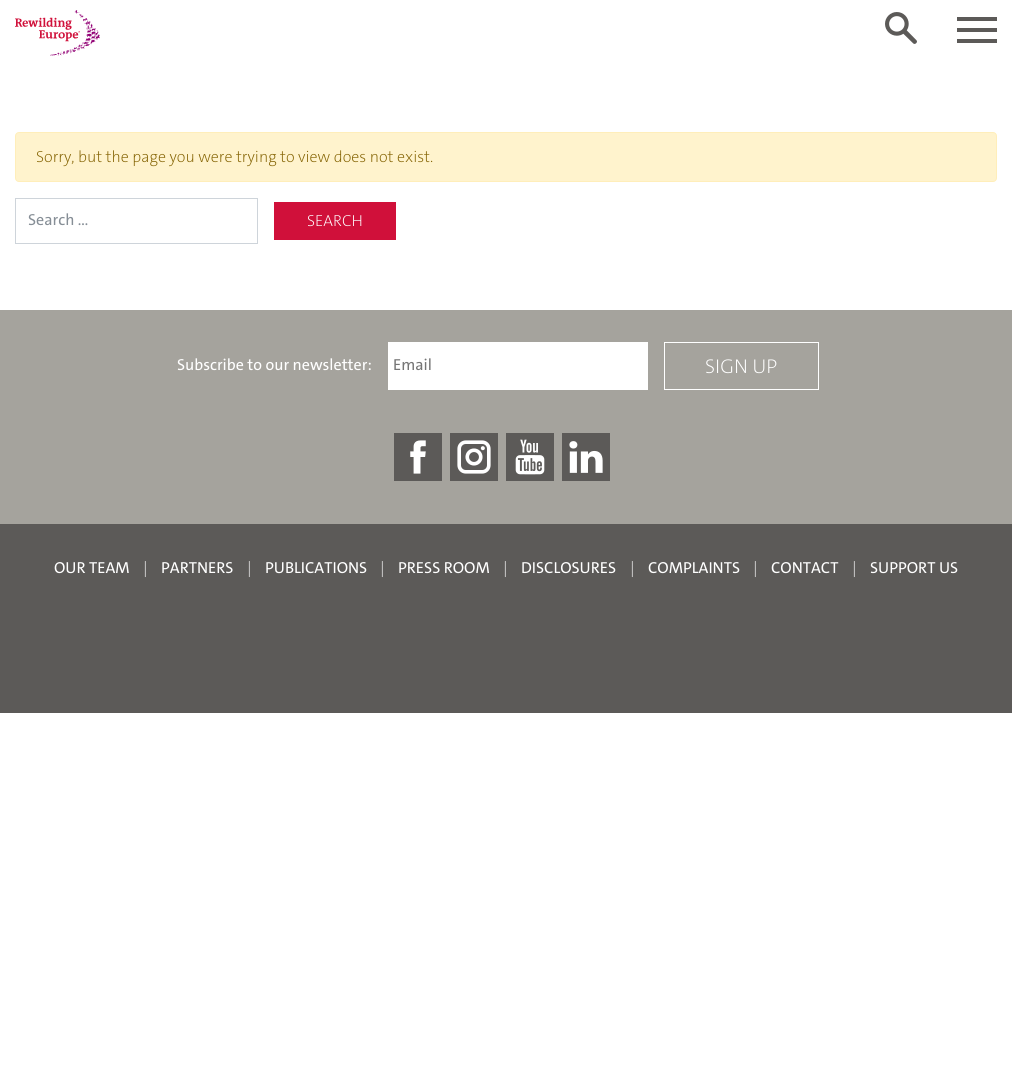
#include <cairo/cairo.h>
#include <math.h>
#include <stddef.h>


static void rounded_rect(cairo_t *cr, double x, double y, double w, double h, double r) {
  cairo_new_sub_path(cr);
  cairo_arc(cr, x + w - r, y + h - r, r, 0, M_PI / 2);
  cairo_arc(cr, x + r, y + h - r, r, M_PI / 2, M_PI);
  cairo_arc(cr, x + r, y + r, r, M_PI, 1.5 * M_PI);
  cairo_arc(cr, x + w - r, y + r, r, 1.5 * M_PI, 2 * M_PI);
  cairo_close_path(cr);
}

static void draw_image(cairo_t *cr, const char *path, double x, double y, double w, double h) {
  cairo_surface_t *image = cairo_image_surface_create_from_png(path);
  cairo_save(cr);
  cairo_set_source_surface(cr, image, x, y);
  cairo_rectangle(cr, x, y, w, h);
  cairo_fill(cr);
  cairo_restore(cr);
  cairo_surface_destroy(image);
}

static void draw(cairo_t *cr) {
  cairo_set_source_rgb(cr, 1, 1, 1);
  cairo_paint(cr);
  draw_image(cr, "images/1.png", 15, 10, 85, 46);
  draw_image(cr, "images/2.png", 885, 12, 32, 32);
  cairo_set_source_rgb(cr, 92 / 255.0, 90 / 255.0, 88 / 255.0);
  cairo_rectangle(cr, 957, 17, 40, 4);
  cairo_fill(cr);
  cairo_rectangle(cr, 957, 28, 40, 4);
  cairo_fill(cr);
  cairo_rectangle(cr, 957, 39, 40, 4);
  cairo_fill(cr);
  cairo_set_source_rgb(cr, 1, 243 / 255.0, 205 / 255.0);
  rounded_rect(cr, 15.5, 132.5, 981, 49, 3.5);
  cairo_fill_preserve(cr);
  cairo_set_source_rgb(cr, 1, 238 / 255.0, 186 / 255.0);
  cairo_set_line_width(cr, 1);
  cairo_stroke(cr);
  cairo_rectangle(cr, 15.5, 198.5, 242, 45);
  cairo_set_source_rgb(cr, 206 / 255.0, 212 / 255.0, 218 / 255.0);
  cairo_stroke(cr);
  cairo_set_source_rgb(cr, 208 / 255.0, 16 / 255.0, 58 / 255.0);
  cairo_rectangle(cr, 274, 202, 122, 38);
  cairo_fill(cr);
  cairo_set_source_rgb(cr, 165 / 255.0, 163 / 255.0, 157 / 255.0);
  cairo_rectangle(cr, 0, 310, 1012, 214);
  cairo_fill(cr);
  cairo_set_source_rgb(cr, 1, 1, 1);
  cairo_rectangle(cr, 388, 342, 260, 48);
  cairo_fill(cr);
  cairo_rectangle(cr, 664.5, 342.5, 154, 47);
  cairo_stroke(cr);
  cairo_rectangle(cr, 410, 440, 16, 34);
  cairo_fill(cr);
  draw_image(cr, "images/3.png", 394, 433, 48, 48);
  cairo_rectangle(cr, 457, 440, 34, 34);
  cairo_fill(cr);
  draw_image(cr, "images/4.png", 450, 433, 48, 48);
  cairo_rectangle(cr, 515, 439, 30, 36);
  cairo_fill(cr);
  draw_image(cr, "images/5.png", 506, 433, 48, 48);
  cairo_rectangle(cr, 569, 441, 34, 32);
  cairo_fill(cr);
  draw_image(cr, "images/6.png", 562, 433, 48, 48);
  cairo_set_source_rgb(cr, 92 / 255.0, 90 / 255.0, 88 / 255.0);
  cairo_rectangle(cr, 0, 524, 1012, 189);
  cairo_fill(cr);
  cairo_select_font_face(cr, "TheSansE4 ExtraLight", CAIRO_FONT_SLANT_NORMAL, CAIRO_FONT_WEIGHT_NORMAL);
  cairo_set_font_size(cr, 16);
  cairo_set_source_rgb(cr, 133 / 255.0, 100 / 255.0, 4 / 255.0);
  cairo_move_to(cr, 36, 162);
  cairo_show_text(cr, "Sorry, but the page you were trying to view does not exist.");
  cairo_select_font_face(cr, "TheSans E4", CAIRO_FONT_SLANT_NORMAL, CAIRO_FONT_WEIGHT_NORMAL);
  cairo_set_source_rgb(cr, 134 / 255.0, 142 / 255.0, 150 / 255.0);
  cairo_move_to(cr, 28, 225);
  cairo_show_text(cr, "Search …");
  cairo_select_font_face(cr, "TheSansE4 ExtraLight", CAIRO_FONT_SLANT_NORMAL, CAIRO_FONT_WEIGHT_NORMAL);
  cairo_set_source_rgb(cr, 1, 1, 1);
  cairo_move_to(cr, 307, 226);
  cairo_show_text(cr, "SEARCH");
  cairo_select_font_face(cr, "TheSans E4", CAIRO_FONT_SLANT_NORMAL, CAIRO_FONT_WEIGHT_NORMAL);
  cairo_move_to(cr, 177, 370);
  cairo_show_text(cr, "Subscribe to our newsletter:");
  cairo_set_source_rgb(cr, 117 / 255.0, 117 / 255.0, 117 / 255.0);
  cairo_move_to(cr, 393, 370);
  cairo_show_text(cr, "Email");
  cairo_select_font_face(cr, "TheSansE4 ExtraLight", CAIRO_FONT_SLANT_NORMAL, CAIRO_FONT_WEIGHT_NORMAL);
  cairo_set_font_size(cr, 20);
  cairo_set_source_rgb(cr, 1, 1, 1);
  cairo_move_to(cr, 705, 373);
  cairo_show_text(cr, "SIGN UP");
  cairo_select_font_face(cr, "TheSans E4", CAIRO_FONT_SLANT_NORMAL, CAIRO_FONT_WEIGHT_NORMAL);
  cairo_set_font_size(cr, 16);
  cairo_move_to(cr, 54, 573);
  cairo_show_text(cr, "OUR TEAM");
  cairo_select_font_face(cr, "TheSansE4 ExtraLight", CAIRO_FONT_SLANT_NORMAL, CAIRO_FONT_WEIGHT_NORMAL);
  cairo_move_to(cr, 143, 573);
  cairo_show_text(cr, "|");
  cairo_select_font_face(cr, "TheSans E4", CAIRO_FONT_SLANT_NORMAL, CAIRO_FONT_WEIGHT_NORMAL);
  cairo_move_to(cr, 161, 573);
  cairo_show_text(cr, "PARTNERS");
  cairo_select_font_face(cr, "TheSansE4 ExtraLight", CAIRO_FONT_SLANT_NORMAL, CAIRO_FONT_WEIGHT_NORMAL);
  cairo_move_to(cr, 247, 573);
  cairo_show_text(cr, "|");
  cairo_select_font_face(cr, "TheSans E4", CAIRO_FONT_SLANT_NORMAL, CAIRO_FONT_WEIGHT_NORMAL);
  cairo_move_to(cr, 265, 573);
  cairo_show_text(cr, "PUBLICATIONS");
  cairo_select_font_face(cr, "TheSansE4 ExtraLight", CAIRO_FONT_SLANT_NORMAL, CAIRO_FONT_WEIGHT_NORMAL);
  cairo_move_to(cr, 380, 573);
  cairo_show_text(cr, "|");
  cairo_select_font_face(cr, "TheSans E4", CAIRO_FONT_SLANT_NORMAL, CAIRO_FONT_WEIGHT_NORMAL);
  cairo_move_to(cr, 398, 573);
  cairo_show_text(cr, "PRESS ROOM");
  cairo_select_font_face(cr, "TheSansE4 ExtraLight", CAIRO_FONT_SLANT_NORMAL, CAIRO_FONT_WEIGHT_NORMAL);
  cairo_move_to(cr, 503, 573);
  cairo_show_text(cr, "|");
  cairo_select_font_face(cr, "TheSans E4", CAIRO_FONT_SLANT_NORMAL, CAIRO_FONT_WEIGHT_NORMAL);
  cairo_move_to(cr, 521, 573);
  cairo_show_text(cr, "DISCLOSURES");
  cairo_select_font_face(cr, "TheSansE4 ExtraLight", CAIRO_FONT_SLANT_NORMAL, CAIRO_FONT_WEIGHT_NORMAL);
  cairo_move_to(cr, 630, 573);
  cairo_show_text(cr, "|");
  cairo_select_font_face(cr, "TheSans E4", CAIRO_FONT_SLANT_NORMAL, CAIRO_FONT_WEIGHT_NORMAL);
  cairo_move_to(cr, 648, 573);
  cairo_show_text(cr, "COMPLAINTS");
  cairo_select_font_face(cr, "TheSansE4 ExtraLight", CAIRO_FONT_SLANT_NORMAL, CAIRO_FONT_WEIGHT_NORMAL);
  cairo_move_to(cr, 753, 573);
  cairo_show_text(cr, "|");
  cairo_select_font_face(cr, "TheSans E4", CAIRO_FONT_SLANT_NORMAL, CAIRO_FONT_WEIGHT_NORMAL);
  cairo_move_to(cr, 771, 573);
  cairo_show_text(cr, "CONTACT");
  cairo_select_font_face(cr, "TheSansE4 ExtraLight", CAIRO_FONT_SLANT_NORMAL, CAIRO_FONT_WEIGHT_NORMAL);
  cairo_move_to(cr, 852, 573);
  cairo_show_text(cr, "|");
  cairo_select_font_face(cr, "TheSans E4", CAIRO_FONT_SLANT_NORMAL, CAIRO_FONT_WEIGHT_NORMAL);
  cairo_move_to(cr, 870, 573);
  cairo_show_text(cr, "SUPPORT US");
}

int main(void) {
  cairo_surface_t *surface = cairo_image_surface_create(CAIRO_FORMAT_RGB24, 1012, 1086);
  cairo_t *cr = cairo_create(surface);
  cairo_font_options_t *options = cairo_font_options_create();
  cairo_font_options_set_hint_metrics(options, CAIRO_HINT_METRICS_OFF);
  cairo_font_options_set_hint_style(options, CAIRO_HINT_STYLE_NONE);
  cairo_set_font_options(cr, options);
  cairo_set_miter_limit(cr, 4);
  draw(cr);
  cairo_surface_write_to_png(surface, "out.png");
  cairo_font_options_destroy(options);
  cairo_destroy(cr);
  cairo_surface_destroy(surface);
  return 0;
}
